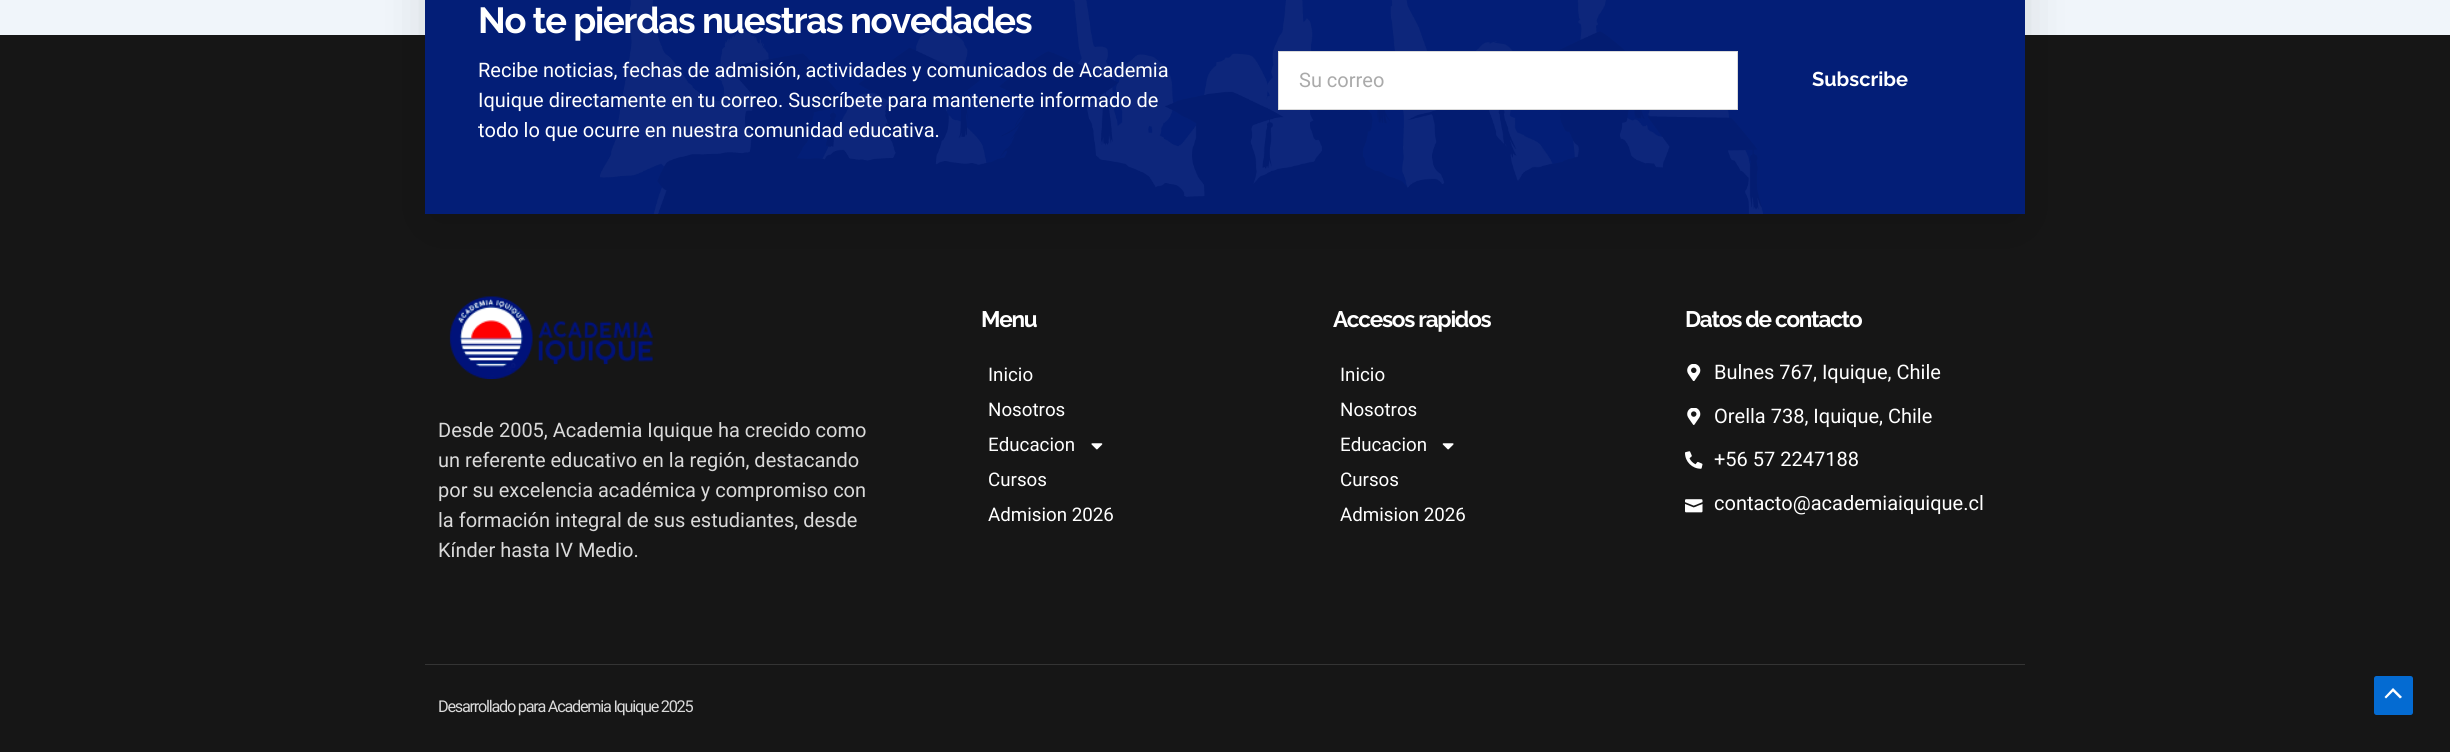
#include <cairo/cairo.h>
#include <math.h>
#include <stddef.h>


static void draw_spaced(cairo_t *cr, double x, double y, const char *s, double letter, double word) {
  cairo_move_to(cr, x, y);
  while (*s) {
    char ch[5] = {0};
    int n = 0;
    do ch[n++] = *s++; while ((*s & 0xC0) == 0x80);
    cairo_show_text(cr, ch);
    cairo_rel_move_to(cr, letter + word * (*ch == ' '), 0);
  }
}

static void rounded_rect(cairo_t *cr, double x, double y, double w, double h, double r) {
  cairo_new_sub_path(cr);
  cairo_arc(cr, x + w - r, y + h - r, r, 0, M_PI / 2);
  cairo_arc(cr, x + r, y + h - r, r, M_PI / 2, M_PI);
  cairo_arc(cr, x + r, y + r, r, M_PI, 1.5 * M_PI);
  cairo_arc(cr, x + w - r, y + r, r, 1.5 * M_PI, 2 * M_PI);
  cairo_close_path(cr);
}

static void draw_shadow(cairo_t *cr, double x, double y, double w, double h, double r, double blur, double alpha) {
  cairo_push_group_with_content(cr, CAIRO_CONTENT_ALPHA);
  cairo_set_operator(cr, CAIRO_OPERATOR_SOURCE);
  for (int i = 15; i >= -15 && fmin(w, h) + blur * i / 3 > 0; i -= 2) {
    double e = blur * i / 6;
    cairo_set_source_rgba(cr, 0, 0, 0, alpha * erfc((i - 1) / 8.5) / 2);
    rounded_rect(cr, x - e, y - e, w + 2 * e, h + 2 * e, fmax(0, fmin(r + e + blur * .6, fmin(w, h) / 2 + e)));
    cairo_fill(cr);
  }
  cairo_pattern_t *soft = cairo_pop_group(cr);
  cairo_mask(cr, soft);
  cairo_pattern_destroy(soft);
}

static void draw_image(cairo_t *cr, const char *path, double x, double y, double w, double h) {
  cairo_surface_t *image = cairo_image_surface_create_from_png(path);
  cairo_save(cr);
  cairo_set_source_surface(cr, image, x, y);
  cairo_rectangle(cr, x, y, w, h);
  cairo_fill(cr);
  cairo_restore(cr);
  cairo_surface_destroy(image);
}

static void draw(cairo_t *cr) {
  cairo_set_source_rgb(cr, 240 / 255.0, 245 / 255.0, 250 / 255.0);
  cairo_paint(cr);
  cairo_set_source_rgb(cr, 22 / 255.0, 22 / 255.0, 22 / 255.0);
  cairo_rectangle(cr, 0, 35, 2450, 717);
  cairo_fill(cr);
  cairo_set_source_rgb(cr, 0, 0, 0);
  draw_shadow(cr, 431, -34, 1588, 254, 0, 25, 0.15);
  cairo_set_source_rgb(cr, 3 / 255.0, 30 / 255.0, 119 / 255.0);
  cairo_rectangle(cr, 425, 0, 1600, 214);
  cairo_fill(cr);
  draw_image(cr, "images/1.png", 600, 0, 1163, 214);
  cairo_set_source_rgb(cr, 1, 1, 1);
  cairo_rectangle(cr, 1278.5, 51.5, 459, 58);
  cairo_fill_preserve(cr);
  cairo_set_source_rgb(cr, 218 / 255.0, 218 / 255.0, 218 / 255.0);
  cairo_set_line_width(cr, 1);
  cairo_stroke(cr);
  draw_image(cr, "images/2.png", 449, 296, 204, 83);
  draw_image(cr, "images/3.png", 1091, 443, 12, 7);
  draw_image(cr, "images/4.png", 1442, 443, 12, 7);
  draw_image(cr, "images/5.png", 1687, 364, 14, 17);
  draw_image(cr, "images/6.png", 1687, 408, 14, 17);
  draw_image(cr, "images/7.png", 1685, 451, 18, 18);
  draw_image(cr, "images/8.png", 1685, 499, 18, 14);
  cairo_set_source_rgb(cr, 52 / 255.0, 52 / 255.0, 52 / 255.0);
  cairo_rectangle(cr, 425, 664, 1600, 1);
  cairo_fill(cr);
  cairo_set_source_rgb(cr, 4 / 255.0, 107 / 255.0, 210 / 255.0);
  rounded_rect(cr, 2374, 676, 39, 39, 2.5);
  cairo_fill(cr);
  cairo_set_source_rgb(cr, 1, 1, 1);
  cairo_new_path(cr);
  cairo_move_to(cr, 2402, 697);
  cairo_line_to(cr, 2393, 688);
  cairo_line_to(cr, 2384.5, 697);
  cairo_line_to(cr, 2386, 698.5);
  cairo_line_to(cr, 2393, 691.5);
  cairo_line_to(cr, 2400, 698.5);
  cairo_close_path(cr);
  cairo_fill(cr);
  cairo_select_font_face(cr, "Raleway", CAIRO_FONT_SLANT_NORMAL, CAIRO_FONT_WEIGHT_BOLD);
  cairo_set_font_size(cr, 36.25);
  draw_spaced(cr, 478, 33, "No te pierdas nuestras novedades", -1.25, 0);
  cairo_select_font_face(cr, "Roboto", CAIRO_FONT_SLANT_NORMAL, CAIRO_FONT_WEIGHT_NORMAL);
  cairo_set_font_size(cr, 20);
  cairo_move_to(cr, 478, 77);
  cairo_show_text(cr, "Recibe noticias, fechas de admisión, actividades y comunicados de Academia");
  cairo_move_to(cr, 478, 107);
  cairo_show_text(cr, "Iquique directamente en tu correo. Suscríbete para mantenerte informado de");
  cairo_move_to(cr, 478, 137);
  cairo_show_text(cr, "todo lo que ocurre en nuestra comunidad educativa.");
  cairo_set_source_rgb(cr, 170 / 255.0, 170 / 255.0, 170 / 255.0);
  cairo_move_to(cr, 1299, 87);
  cairo_show_text(cr, "Su correo");
  cairo_select_font_face(cr, "Raleway", CAIRO_FONT_SLANT_NORMAL, CAIRO_FONT_WEIGHT_BOLD);
  cairo_set_source_rgb(cr, 1, 1, 1);
  cairo_move_to(cr, 1812, 86);
  cairo_show_text(cr, "Subscribe");
  cairo_select_font_face(cr, "Roboto", CAIRO_FONT_SLANT_NORMAL, CAIRO_FONT_WEIGHT_NORMAL);
  cairo_set_source_rgb(cr, 218 / 255.0, 218 / 255.0, 218 / 255.0);
  cairo_move_to(cr, 438, 437);
  cairo_show_text(cr, "Desde 2005, Academia Iquique ha crecido como");
  cairo_move_to(cr, 438, 467);
  cairo_show_text(cr, "un referente educativo en la región, destacando");
  cairo_move_to(cr, 438, 497);
  cairo_show_text(cr, "por su excelencia académica y compromiso con");
  cairo_move_to(cr, 438, 527);
  cairo_show_text(cr, "la formación integral de sus estudiantes, desde");
  cairo_move_to(cr, 438, 557);
  cairo_show_text(cr, "Kínder hasta IV Medio.");
  cairo_select_font_face(cr, "Raleway", CAIRO_FONT_SLANT_NORMAL, CAIRO_FONT_WEIGHT_BOLD);
  cairo_set_font_size(cr, 22.5);
  cairo_set_source_rgb(cr, 1, 1, 1);
  draw_spaced(cr, 981, 327, "Menu", -1.25, 0);
  cairo_select_font_face(cr, "Roboto", CAIRO_FONT_SLANT_NORMAL, CAIRO_FONT_WEIGHT_NORMAL);
  cairo_set_font_size(cr, 18.75);
  cairo_move_to(cr, 988, 381);
  cairo_show_text(cr, "Inicio");
  cairo_move_to(cr, 988, 416);
  cairo_show_text(cr, "Nosotros");
  cairo_move_to(cr, 988, 451);
  cairo_show_text(cr, "Educacion");
  cairo_move_to(cr, 988, 486);
  cairo_show_text(cr, "Cursos");
  cairo_move_to(cr, 988, 521);
  cairo_show_text(cr, "Admision 2026");
  cairo_select_font_face(cr, "Raleway", CAIRO_FONT_SLANT_NORMAL, CAIRO_FONT_WEIGHT_BOLD);
  cairo_set_font_size(cr, 22.5);
  draw_spaced(cr, 1333, 327, "Accesos rapidos", -1.25, 0);
  cairo_select_font_face(cr, "Roboto", CAIRO_FONT_SLANT_NORMAL, CAIRO_FONT_WEIGHT_NORMAL);
  cairo_set_font_size(cr, 18.75);
  cairo_move_to(cr, 1340, 381);
  cairo_show_text(cr, "Inicio");
  cairo_move_to(cr, 1340, 416);
  cairo_show_text(cr, "Nosotros");
  cairo_move_to(cr, 1340, 451);
  cairo_show_text(cr, "Educacion");
  cairo_move_to(cr, 1340, 486);
  cairo_show_text(cr, "Cursos");
  cairo_move_to(cr, 1340, 521);
  cairo_show_text(cr, "Admision 2026");
  cairo_select_font_face(cr, "Raleway", CAIRO_FONT_SLANT_NORMAL, CAIRO_FONT_WEIGHT_BOLD);
  cairo_set_font_size(cr, 22.5);
  draw_spaced(cr, 1685, 327, "Datos de contacto", -1.25, 0);
  cairo_select_font_face(cr, "Roboto", CAIRO_FONT_SLANT_NORMAL, CAIRO_FONT_WEIGHT_NORMAL);
  cairo_set_font_size(cr, 20);
  cairo_move_to(cr, 1714, 379);
  cairo_show_text(cr, "Bulnes 767, Iquique, Chile");
  cairo_move_to(cr, 1714, 423);
  cairo_show_text(cr, "Orella 738, Iquique, Chile");
  cairo_move_to(cr, 1714, 466);
  cairo_show_text(cr, "+56 57 2247188");
  cairo_move_to(cr, 1714, 510);
  cairo_show_text(cr, "contacto@academiaiquique.cl");
  cairo_set_font_size(cr, 16.25);
  cairo_set_source_rgb(cr, 218 / 255.0, 218 / 255.0, 218 / 255.0);
  draw_spaced(cr, 438, 712, "Desarrollado para Academia Iquique 2025", -1.25, 0);
}

int main(void) {
  cairo_surface_t *surface = cairo_image_surface_create(CAIRO_FORMAT_RGB24, 2450, 752);
  cairo_t *cr = cairo_create(surface);
  cairo_font_options_t *options = cairo_font_options_create();
  cairo_font_options_set_hint_metrics(options, CAIRO_HINT_METRICS_OFF);
  cairo_font_options_set_hint_style(options, CAIRO_HINT_STYLE_NONE);
  cairo_set_font_options(cr, options);
  cairo_set_miter_limit(cr, 4);
  draw(cr);
  cairo_surface_write_to_png(surface, "out.png");
  cairo_font_options_destroy(options);
  cairo_destroy(cr);
  cairo_surface_destroy(surface);
  return 0;
}
